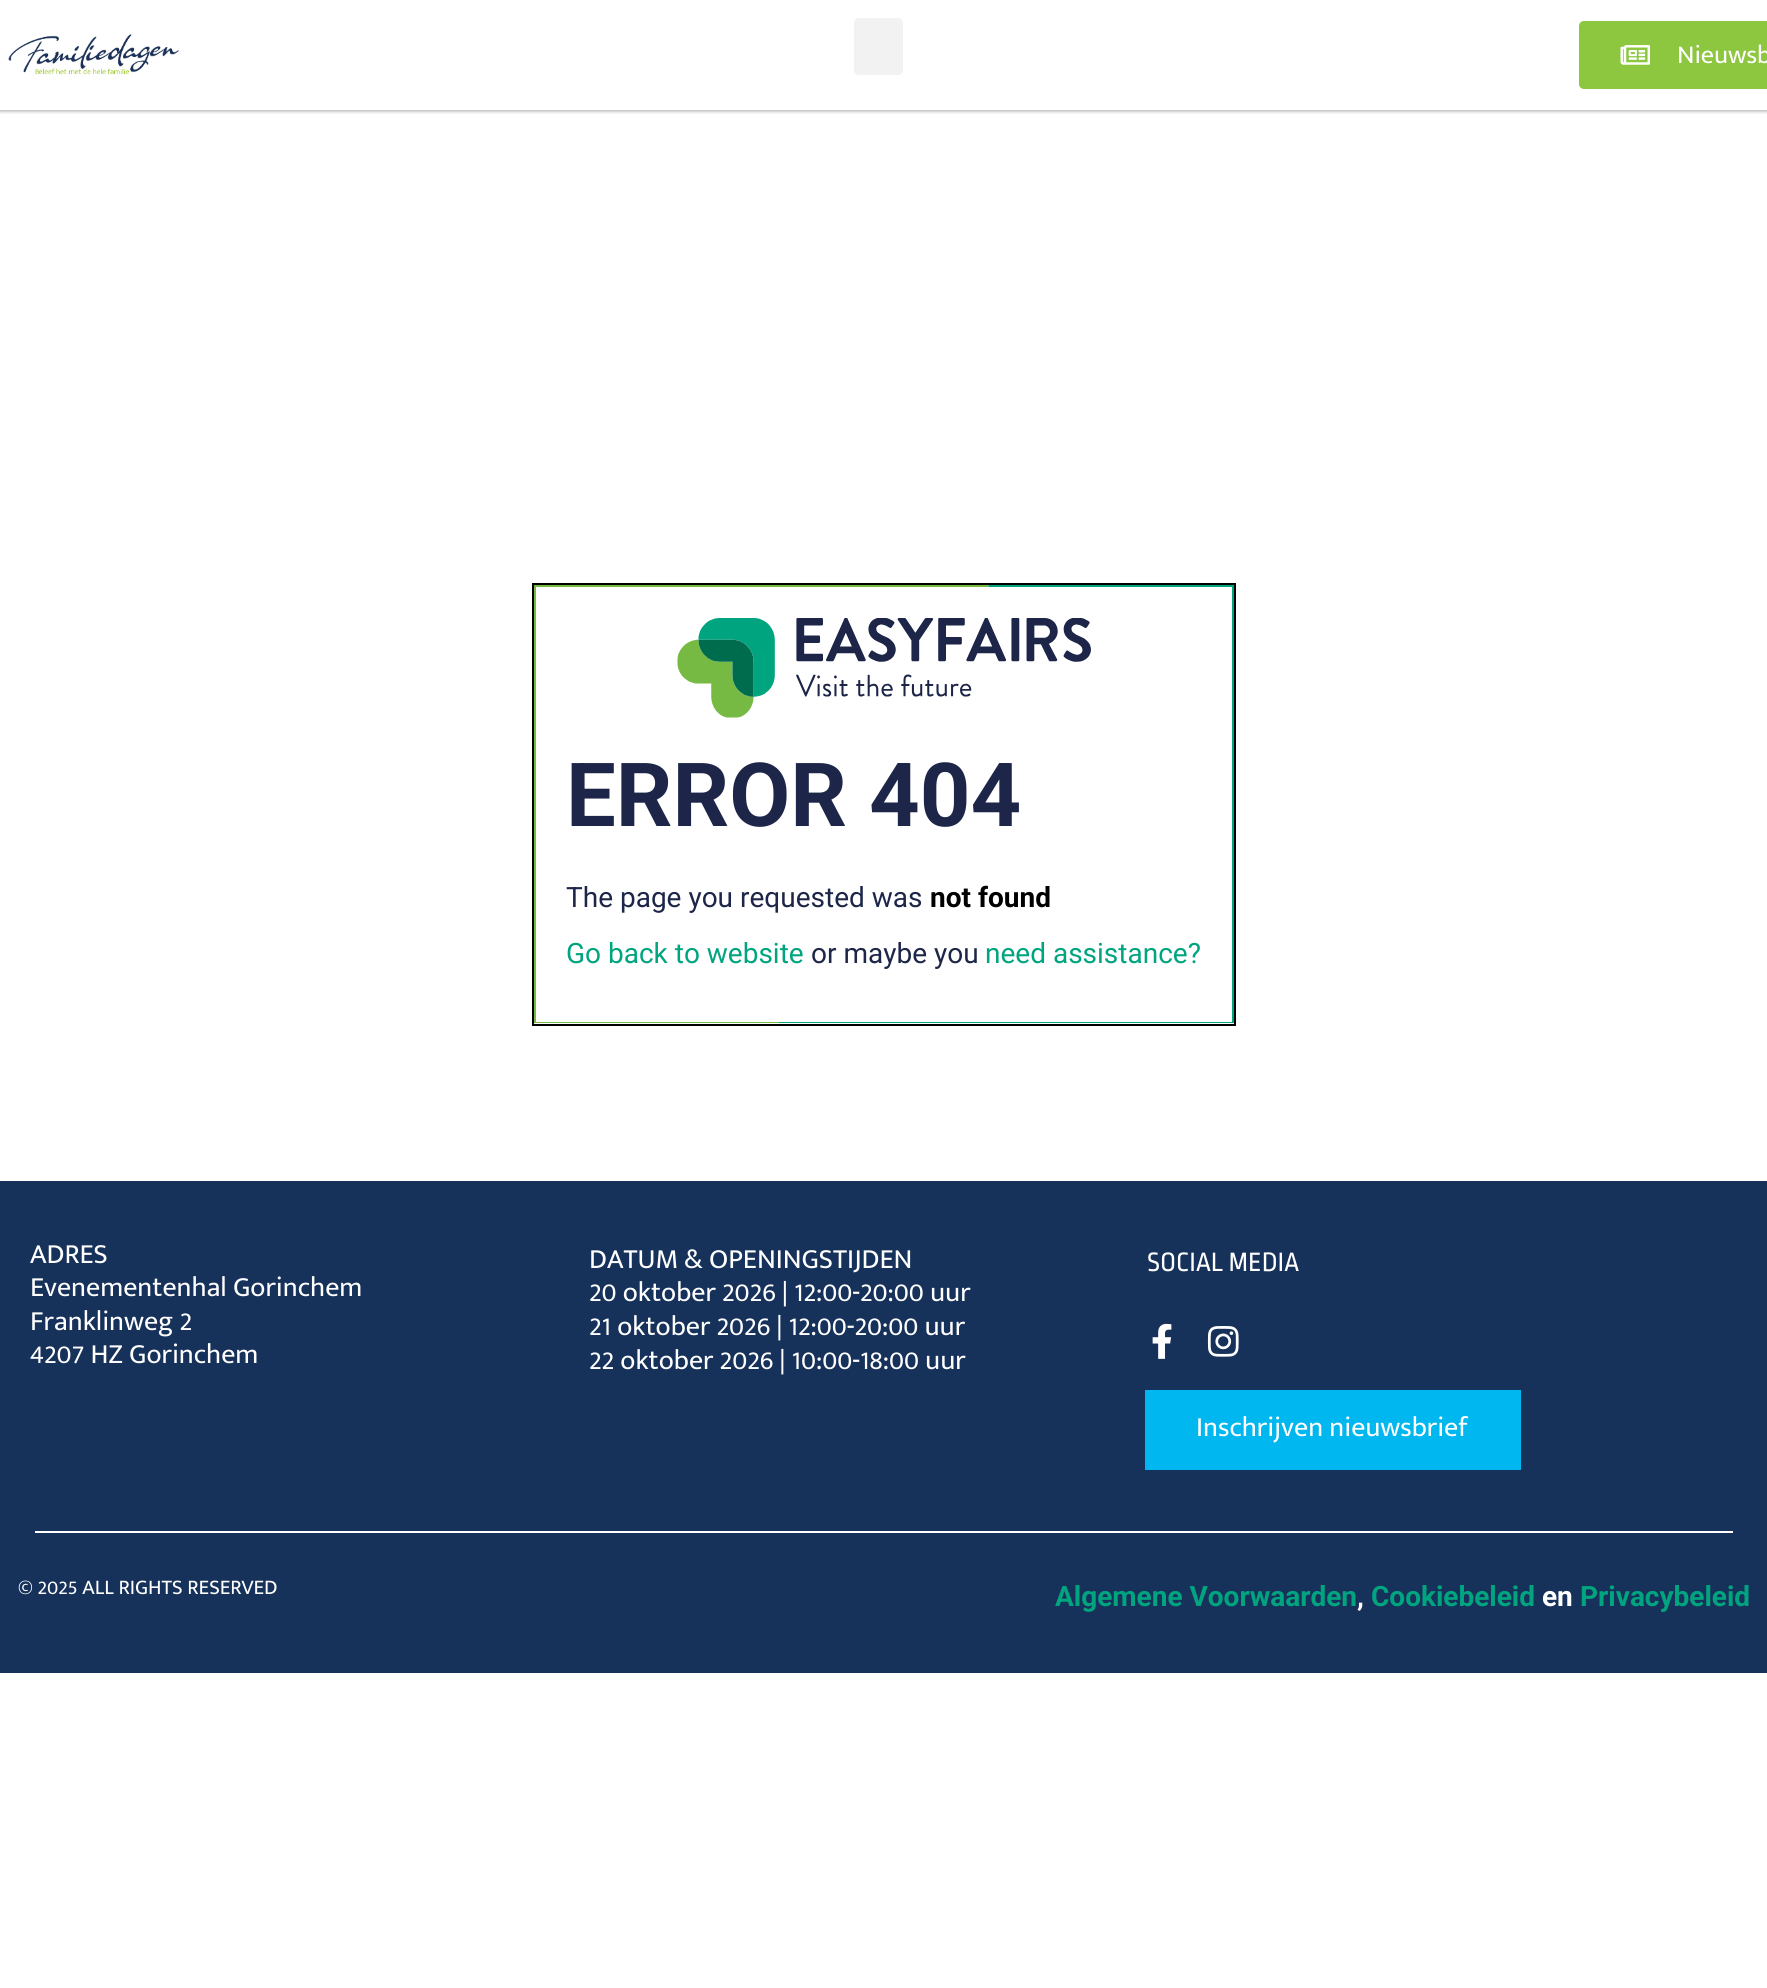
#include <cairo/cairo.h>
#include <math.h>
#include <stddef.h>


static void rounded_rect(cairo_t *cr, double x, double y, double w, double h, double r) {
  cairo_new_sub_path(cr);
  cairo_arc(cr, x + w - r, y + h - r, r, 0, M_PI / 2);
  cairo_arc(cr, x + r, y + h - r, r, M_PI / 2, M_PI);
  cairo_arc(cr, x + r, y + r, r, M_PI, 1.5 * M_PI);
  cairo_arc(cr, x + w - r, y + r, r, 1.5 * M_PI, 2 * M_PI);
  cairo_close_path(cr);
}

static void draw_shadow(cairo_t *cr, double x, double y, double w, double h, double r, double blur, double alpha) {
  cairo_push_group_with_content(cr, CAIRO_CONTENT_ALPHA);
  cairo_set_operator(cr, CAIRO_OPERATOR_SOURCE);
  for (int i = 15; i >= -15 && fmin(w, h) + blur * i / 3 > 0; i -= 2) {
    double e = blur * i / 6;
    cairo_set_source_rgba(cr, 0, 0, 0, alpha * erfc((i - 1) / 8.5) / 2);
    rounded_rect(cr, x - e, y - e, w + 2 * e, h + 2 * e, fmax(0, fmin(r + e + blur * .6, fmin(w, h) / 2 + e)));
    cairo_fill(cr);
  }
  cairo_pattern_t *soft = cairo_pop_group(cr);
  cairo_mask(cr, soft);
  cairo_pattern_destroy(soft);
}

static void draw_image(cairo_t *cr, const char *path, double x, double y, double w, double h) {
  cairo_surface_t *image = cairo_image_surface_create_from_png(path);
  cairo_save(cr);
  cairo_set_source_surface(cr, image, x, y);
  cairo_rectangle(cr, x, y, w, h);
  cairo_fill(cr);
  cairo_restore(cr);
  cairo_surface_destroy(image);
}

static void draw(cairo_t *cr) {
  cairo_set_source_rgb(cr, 1, 1, 1);
  cairo_paint(cr);
  cairo_save(cr);
  cairo_rectangle(cr, 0, 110, 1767, 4);
  cairo_clip(cr);
  cairo_set_source_rgb(cr, 0, 0, 0);
  draw_shadow(cr, 0, 0, 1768, 110, 0, 2.5, 0.5);
  cairo_restore(cr);
  draw_image(cr, "images/1.png", 8, 34, 171, 41);
  cairo_set_source_rgb(cr, 242 / 255.0, 242 / 255.0, 242 / 255.0);
  rounded_rect(cr, 854, 18, 49, 57, 5);
  cairo_fill(cr);
  cairo_set_source_rgb(cr, 141 / 255.0, 198 / 255.0, 63 / 255.0);
  rounded_rect(cr, 1579, 21, 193, 68, 5);
  cairo_fill(cr);
  draw_image(cr, "images/2.png", 1620, 45, 31, 20);
  draw_image(cr, "images/3.png", 677, 618, 414, 100);
  cairo_rectangle(cr, 533, 584, 702, 441);
  cairo_set_source_rgb(cr, 0, 0, 0);
  cairo_stroke(cr);
  cairo_set_source_rgb(cr, 118 / 255.0, 186 / 255.0, 67 / 255.0);
  cairo_new_path(cr);
  cairo_move_to(cr, 534, 585);
  cairo_line_to(cr, 534, 1023);
  cairo_line_to(cr, 779, 1023);
  cairo_line_to(cr, 779, 1022);
  cairo_line_to(cr, 536, 1022);
  cairo_line_to(cr, 536, 587);
  cairo_line_to(cr, 988, 587);
  cairo_line_to(cr, 989, 585);
  cairo_close_path(cr);
  cairo_fill(cr);
  cairo_set_source_rgb(cr, 0, 165 / 255.0, 127 / 255.0);
  cairo_new_path(cr);
  cairo_move_to(cr, 1234, 1023);
  cairo_line_to(cr, 1234, 585);
  cairo_line_to(cr, 989, 585);
  cairo_line_to(cr, 988, 587);
  cairo_line_to(cr, 1232, 587);
  cairo_line_to(cr, 1232, 1022);
  cairo_line_to(cr, 779, 1022);
  cairo_line_to(cr, 779, 1023);
  cairo_close_path(cr);
  cairo_fill(cr);
  cairo_set_source_rgb(cr, 22 / 255.0, 49 / 255.0, 90 / 255.0);
  cairo_rectangle(cr, 0, 1181, 1767, 492);
  cairo_fill(cr);
  draw_image(cr, "images/4.png", 1152, 1323, 20, 36);
  draw_image(cr, "images/5.png", 1207, 1326, 32, 31);
  cairo_set_source_rgb(cr, 0, 183 / 255.0, 240 / 255.0);
  cairo_rectangle(cr, 1145, 1390, 376, 80);
  cairo_fill(cr);
  cairo_set_source_rgb(cr, 1, 1, 1);
  cairo_rectangle(cr, 35, 1531, 1698, 2);
  cairo_fill(cr);
  cairo_select_font_face(cr, "Mukta Mahee", CAIRO_FONT_SLANT_NORMAL, CAIRO_FONT_WEIGHT_NORMAL);
  cairo_set_font_size(cr, 26);
  cairo_move_to(cr, 1677, 63);
  cairo_show_text(cr, "Nieuwsb");
  cairo_select_font_face(cr, "Roboto", CAIRO_FONT_SLANT_NORMAL, CAIRO_FONT_WEIGHT_BOLD);
  cairo_set_font_size(cr, 88.5);
  cairo_set_source_rgb(cr, 29 / 255.0, 38 / 255.0, 73 / 255.0);
  cairo_move_to(cr, 566, 826);
  cairo_show_text(cr, "ERROR 404");
  cairo_select_font_face(cr, "Roboto", CAIRO_FONT_SLANT_NORMAL, CAIRO_FONT_WEIGHT_NORMAL);
  cairo_set_font_size(cr, 28);
  cairo_move_to(cr, 566, 907);
  cairo_show_text(cr, "The page you requested was");
  cairo_select_font_face(cr, "Roboto", CAIRO_FONT_SLANT_NORMAL, CAIRO_FONT_WEIGHT_BOLD);
  cairo_set_source_rgb(cr, 0, 0, 0);
  cairo_move_to(cr, 930, 907);
  cairo_show_text(cr, "not found");
  cairo_select_font_face(cr, "Roboto", CAIRO_FONT_SLANT_NORMAL, CAIRO_FONT_WEIGHT_NORMAL);
  cairo_set_source_rgb(cr, 0, 165 / 255.0, 127 / 255.0);
  cairo_move_to(cr, 566, 963);
  cairo_show_text(cr, "Go back to website");
  cairo_set_source_rgb(cr, 29 / 255.0, 38 / 255.0, 73 / 255.0);
  cairo_move_to(cr, 811, 963);
  cairo_show_text(cr, "or maybe you");
  cairo_set_source_rgb(cr, 0, 165 / 255.0, 127 / 255.0);
  cairo_move_to(cr, 985, 963);
  cairo_show_text(cr, "need assistance?");
  cairo_select_font_face(cr, "Mukta Mahee", CAIRO_FONT_SLANT_NORMAL, CAIRO_FONT_WEIGHT_NORMAL);
  cairo_set_source_rgb(cr, 1, 1, 1);
  cairo_move_to(cr, 30, 1263);
  cairo_show_text(cr, "ADRES");
  cairo_move_to(cr, 30, 1296);
  cairo_show_text(cr, "Evenementenhal Gorinchem");
  cairo_move_to(cr, 30, 1330);
  cairo_show_text(cr, "Franklinweg 2");
  cairo_move_to(cr, 30, 1363);
  cairo_show_text(cr, "4207 HZ Gorinchem");
  cairo_move_to(cr, 589, 1268);
  cairo_show_text(cr, "DATUM & OPENINGSTIJDEN");
  cairo_move_to(cr, 589, 1301);
  cairo_show_text(cr, "20 oktober 2026 | 12:00-20:00 uur");
  cairo_move_to(cr, 589, 1335);
  cairo_show_text(cr, "21 oktober 2026 | 12:00-20:00 uur");
  cairo_move_to(cr, 589, 1369);
  cairo_show_text(cr, "22 oktober 2026 | 10:00-18:00 uur");
  cairo_select_font_face(cr, "Ropa Sans", CAIRO_FONT_SLANT_NORMAL, CAIRO_FONT_WEIGHT_NORMAL);
  cairo_move_to(cr, 1147, 1271);
  cairo_show_text(cr, "SOCIAL MEDIA");
  cairo_select_font_face(cr, "Mukta Mahee", CAIRO_FONT_SLANT_NORMAL, CAIRO_FONT_WEIGHT_NORMAL);
  cairo_move_to(cr, 1196, 1436);
  cairo_show_text(cr, "Inschrijven nieuwsbrief");
  cairo_set_font_size(cr, 21);
  cairo_move_to(cr, 18, 1594);
  cairo_show_text(cr, "© 2025 ALL RIGHTS RESERVED");
  cairo_select_font_face(cr, "Roboto", CAIRO_FONT_SLANT_NORMAL, CAIRO_FONT_WEIGHT_BOLD);
  cairo_set_font_size(cr, 28);
  cairo_set_source_rgb(cr, 0, 165 / 255.0, 127 / 255.0);
  cairo_move_to(cr, 1055, 1606);
  cairo_show_text(cr, "Algemene Voorwaarden");
  cairo_set_source_rgb(cr, 1, 1, 1);
  cairo_move_to(cr, 1357, 1606);
  cairo_show_text(cr, ",");
  cairo_set_source_rgb(cr, 0, 165 / 255.0, 127 / 255.0);
  cairo_move_to(cr, 1371, 1606);
  cairo_show_text(cr, "Cookiebeleid");
  cairo_set_source_rgb(cr, 1, 1, 1);
  cairo_move_to(cr, 1542, 1606);
  cairo_show_text(cr, "en");
  cairo_set_source_rgb(cr, 0, 165 / 255.0, 127 / 255.0);
  cairo_move_to(cr, 1580, 1606);
  cairo_show_text(cr, "Privacybeleid");
}

int main(void) {
  cairo_surface_t *surface = cairo_image_surface_create(CAIRO_FORMAT_RGB24, 1767, 1988);
  cairo_t *cr = cairo_create(surface);
  cairo_font_options_t *options = cairo_font_options_create();
  cairo_font_options_set_hint_metrics(options, CAIRO_HINT_METRICS_OFF);
  cairo_font_options_set_hint_style(options, CAIRO_HINT_STYLE_NONE);
  cairo_set_font_options(cr, options);
  cairo_set_miter_limit(cr, 4);
  draw(cr);
  cairo_surface_write_to_png(surface, "out.png");
  cairo_font_options_destroy(options);
  cairo_destroy(cr);
  cairo_surface_destroy(surface);
  return 0;
}
